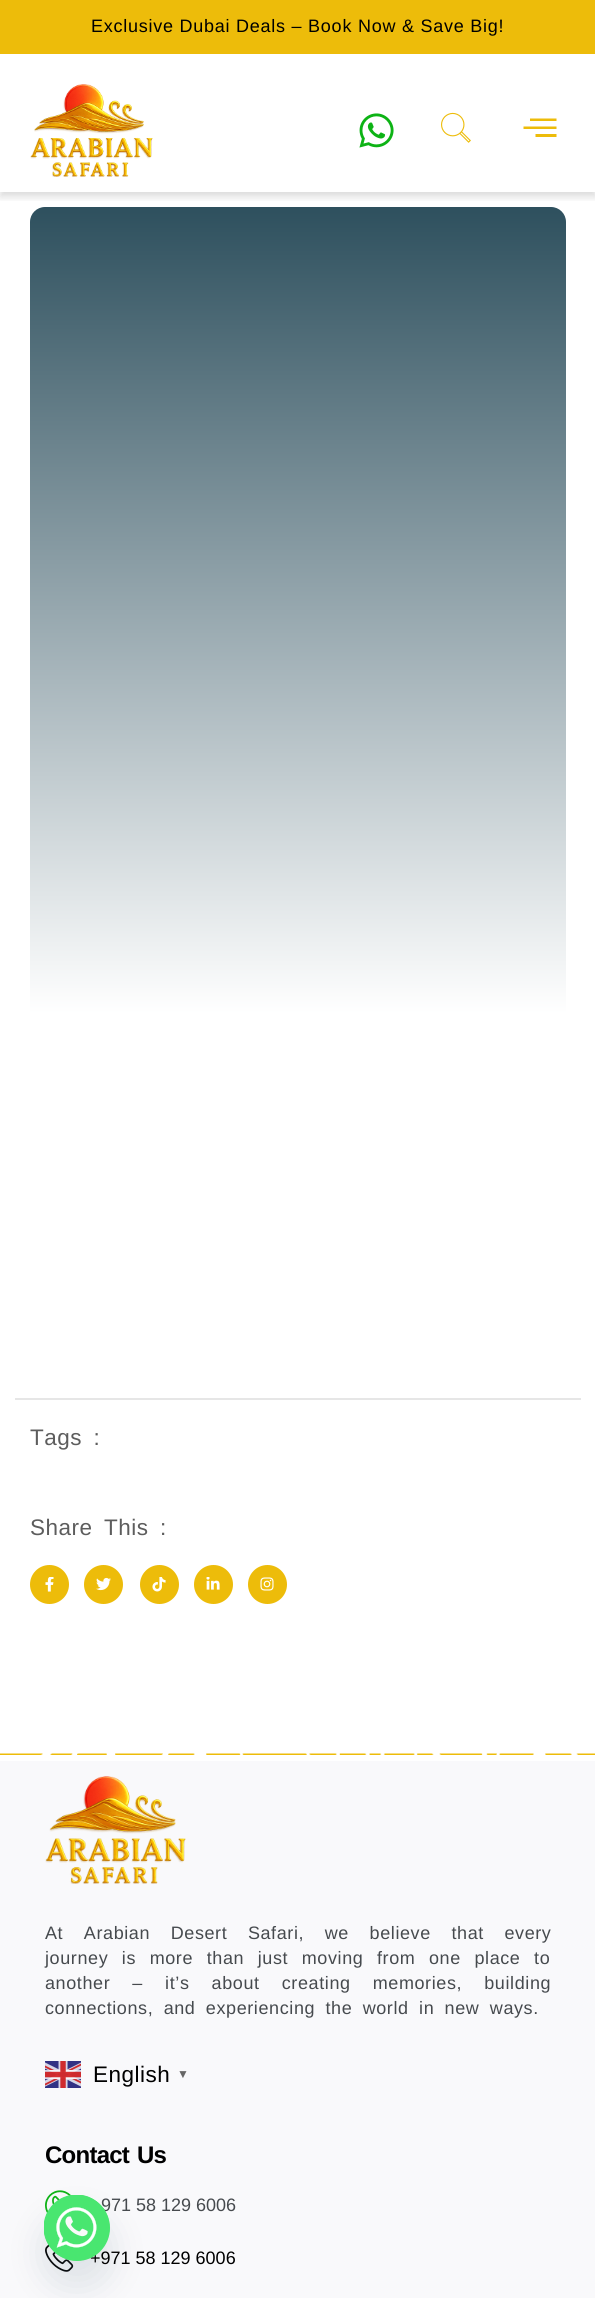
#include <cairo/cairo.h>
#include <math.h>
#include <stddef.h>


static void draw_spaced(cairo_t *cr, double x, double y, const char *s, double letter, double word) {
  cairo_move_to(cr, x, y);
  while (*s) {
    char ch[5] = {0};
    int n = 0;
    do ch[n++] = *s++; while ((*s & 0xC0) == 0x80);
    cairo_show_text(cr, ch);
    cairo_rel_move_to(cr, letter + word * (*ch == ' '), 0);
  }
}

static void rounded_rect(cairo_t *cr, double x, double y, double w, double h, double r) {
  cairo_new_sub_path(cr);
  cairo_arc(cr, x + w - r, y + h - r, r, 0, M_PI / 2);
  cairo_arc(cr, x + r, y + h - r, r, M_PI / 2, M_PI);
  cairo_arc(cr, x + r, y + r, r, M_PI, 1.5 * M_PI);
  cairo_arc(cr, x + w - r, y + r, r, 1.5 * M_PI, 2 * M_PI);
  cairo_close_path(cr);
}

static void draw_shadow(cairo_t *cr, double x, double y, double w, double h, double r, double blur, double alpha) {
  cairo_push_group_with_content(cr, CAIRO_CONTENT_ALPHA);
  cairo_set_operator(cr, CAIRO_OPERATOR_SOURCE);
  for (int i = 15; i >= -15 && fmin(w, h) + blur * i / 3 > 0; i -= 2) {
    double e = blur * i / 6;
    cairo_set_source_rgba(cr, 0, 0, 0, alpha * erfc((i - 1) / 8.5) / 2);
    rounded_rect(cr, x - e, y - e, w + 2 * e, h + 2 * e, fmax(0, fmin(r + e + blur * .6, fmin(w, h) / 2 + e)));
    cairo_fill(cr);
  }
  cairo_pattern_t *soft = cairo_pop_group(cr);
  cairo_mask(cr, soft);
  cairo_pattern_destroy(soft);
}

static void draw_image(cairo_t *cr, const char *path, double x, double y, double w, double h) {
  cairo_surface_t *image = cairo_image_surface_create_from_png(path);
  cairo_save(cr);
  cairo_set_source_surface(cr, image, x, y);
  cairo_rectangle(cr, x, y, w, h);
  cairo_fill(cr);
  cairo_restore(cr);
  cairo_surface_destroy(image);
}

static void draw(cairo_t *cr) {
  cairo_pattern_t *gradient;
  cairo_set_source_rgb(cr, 1, 1, 1);
  cairo_paint(cr);
  cairo_set_source_rgb(cr, 237 / 255.0, 188 / 255.0, 10 / 255.0);
  cairo_rectangle(cr, 0, 0, 595, 54);
  cairo_fill(cr);
  cairo_save(cr);
  cairo_rectangle(cr, 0, 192, 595, 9);
  cairo_clip(cr);
  cairo_set_source_rgb(cr, 0, 0, 0);
  draw_shadow(cr, 0, 74, 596, 123, 0, 4, 0.14);
  cairo_restore(cr);
  draw_image(cr, "images/1.png", 30, 84, 123, 93);
  draw_image(cr, "images/2.png", 359, 113, 35, 35);
  draw_image(cr, "images/3.png", 441, 112, 30, 31);
  cairo_new_path(cr);
  cairo_move_to(cr, 523.5, 129);
  cairo_line_to(cr, 556.5, 129);
  cairo_line_to(cr, 556.5, 126.5);
  cairo_line_to(cr, 523.5, 126.5);
  cairo_close_path(cr);
  cairo_move_to(cr, 535.5, 137);
  cairo_line_to(cr, 556.5, 137);
  cairo_line_to(cr, 556.5, 134);
  cairo_line_to(cr, 535.5, 134);
  cairo_close_path(cr);
  cairo_move_to(cr, 530, 118.5);
  cairo_line_to(cr, 530, 121);
  cairo_line_to(cr, 556.5, 121);
  cairo_line_to(cr, 556.5, 118.5);
  cairo_close_path(cr);
  cairo_fill(cr);
  gradient = cairo_pattern_create_linear(298, 207, 298, 1241);
  cairo_pattern_add_color_stop_rgba(gradient, 0, 46 / 255.0, 80 / 255.0, 94 / 255.0, 1);
  cairo_pattern_add_color_stop_rgba(gradient, 0.78, 1, 1, 1, 1);
  cairo_set_source(cr, gradient);
  cairo_pattern_destroy(gradient);
  rounded_rect(cr, 30, 207, 536, 1034, 15);
  cairo_fill(cr);
  cairo_set_source_rgb(cr, 230 / 255.0, 230 / 255.0, 230 / 255.0);
  cairo_rectangle(cr, 15, 1398, 566, 2);
  cairo_fill(cr);
  cairo_set_source_rgb(cr, 237 / 255.0, 188 / 255.0, 10 / 255.0);
  cairo_arc(cr, 49.5, 1584.5, 19.5, 0, 2 * M_PI);
  cairo_fill(cr);
  draw_image(cr, "images/4.png", 45, 1577, 9, 15);
  cairo_arc(cr, 103.5, 1584.5, 19.5, 0, 2 * M_PI);
  cairo_fill(cr);
  draw_image(cr, "images/5.png", 96, 1577, 15, 14);
  cairo_arc(cr, 159.5, 1584.5, 19.5, 0, 2 * M_PI);
  cairo_fill(cr);
  draw_image(cr, "images/6.png", 152, 1577, 14, 15);
  cairo_arc(cr, 213.5, 1584.5, 19.5, 0, 2 * M_PI);
  cairo_fill(cr);
  draw_image(cr, "images/7.png", 206, 1577, 14, 13);
  cairo_arc(cr, 267.5, 1584.5, 19.5, 0, 2 * M_PI);
  cairo_fill(cr);
  draw_image(cr, "images/8.png", 260, 1577, 14, 14);
  draw_image(cr, "images/9.png", 0, 1753, 595, 2);
  cairo_set_source_rgb(cr, 249 / 255.0, 249 / 255.0, 251 / 255.0);
  cairo_rectangle(cr, 0, 1761, 595, 537);
  cairo_fill(cr);
  draw_image(cr, "images/10.png", 45, 1776, 141, 108);
  draw_image(cr, "images/11.png", 45, 2061, 36, 27);
  draw_image(cr, "images/12.png", 45, 2190, 26, 28);
  draw_image(cr, "images/13.png", 45, 2244, 29, 28);
  cairo_set_source_rgb(cr, 73 / 255.0, 104 / 255.0, 126 / 255.0);
  draw_shadow(cr, 44, 2219, 66, 66, 33, 18, 0.16);
  cairo_select_font_face(cr, "Liberation Sans", CAIRO_FONT_SLANT_NORMAL, CAIRO_FONT_WEIGHT_NORMAL);
  cairo_set_font_size(cr, 18);
  cairo_set_source_rgb(cr, 0, 0, 0);
  draw_spaced(cr, 91, 32, "Exclusive Dubai Deals – Book Now & Save Big!", 0.75, 0);
  cairo_set_font_size(cr, 22.5);
  cairo_set_source_rgb(cr, 93 / 255.0, 93 / 255.0, 93 / 255.0);
  draw_spaced(cr, 30, 1445, "Tags :", 0.5, 4.75);
  draw_spaced(cr, 30, 1535, "Share This :", 0.5, 4.75);
  cairo_set_font_size(cr, 18);
  cairo_set_source_rgb(cr, 70 / 255.0, 74 / 255.0, 78 / 255.0);
  draw_spaced(cr, 45, 1939, "At Arabian Desert Safari, we believe that every", 0.6, 15);
  draw_spaced(cr, 45, 1964, "journey is more than just moving from one place to", 0.6, 8);
  draw_spaced(cr, 45, 1989, "another – it’s about creating memories, building", 0.6, 16.5);
  draw_spaced(cr, 45, 2014, "connections, and experiencing the world in new ways.", 0.6, 4.75);
  cairo_set_font_size(cr, 22.5);
  cairo_set_source_rgb(cr, 0, 0, 0);
  draw_spaced(cr, 93, 2082, "English", 0.5, 0);
  cairo_select_font_face(cr, "Liberation Sans", CAIRO_FONT_SLANT_NORMAL, CAIRO_FONT_WEIGHT_BOLD);
  cairo_set_font_size(cr, 12);
  cairo_set_source_rgb(cr, 102 / 255.0, 102 / 255.0, 102 / 255.0);
  draw_spaced(cr, 177, 2078, "▼", 0.5, 0);
  cairo_set_font_size(cr, 24);
  cairo_set_source_rgb(cr, 0, 0, 0);
  draw_spaced(cr, 45, 2163, "Contact Us", -0.75, 2);
  cairo_select_font_face(cr, "Liberation Sans", CAIRO_FONT_SLANT_NORMAL, CAIRO_FONT_WEIGHT_NORMAL);
  cairo_set_font_size(cr, 18);
  cairo_set_source_rgb(cr, 70 / 255.0, 74 / 255.0, 78 / 255.0);
  cairo_move_to(cr, 101, 2211);
  cairo_show_text(cr, "971 58 129 6006");
  cairo_set_source_rgb(cr, 0, 0, 0);
  cairo_move_to(cr, 90, 2264);
  cairo_show_text(cr, "+971 58 129 6006");
  cairo_set_source_rgb(cr, 73 / 255.0, 230 / 255.0, 112 / 255.0);
  cairo_new_path(cr);
  cairo_arc(cr, 77, 2228, 33, 0, 2 * M_PI);
  cairo_fill(cr);
  draw_image(cr, "images/14.png", 44, 2195, 66, 66);
}

int main(void) {
  cairo_surface_t *surface = cairo_image_surface_create(CAIRO_FORMAT_RGB24, 595, 2298);
  cairo_t *cr = cairo_create(surface);
  cairo_font_options_t *options = cairo_font_options_create();
  cairo_font_options_set_hint_metrics(options, CAIRO_HINT_METRICS_OFF);
  cairo_font_options_set_hint_style(options, CAIRO_HINT_STYLE_NONE);
  cairo_set_font_options(cr, options);
  cairo_set_miter_limit(cr, 4);
  draw(cr);
  cairo_surface_write_to_png(surface, "out.png");
  cairo_font_options_destroy(options);
  cairo_destroy(cr);
  cairo_surface_destroy(surface);
  return 0;
}
